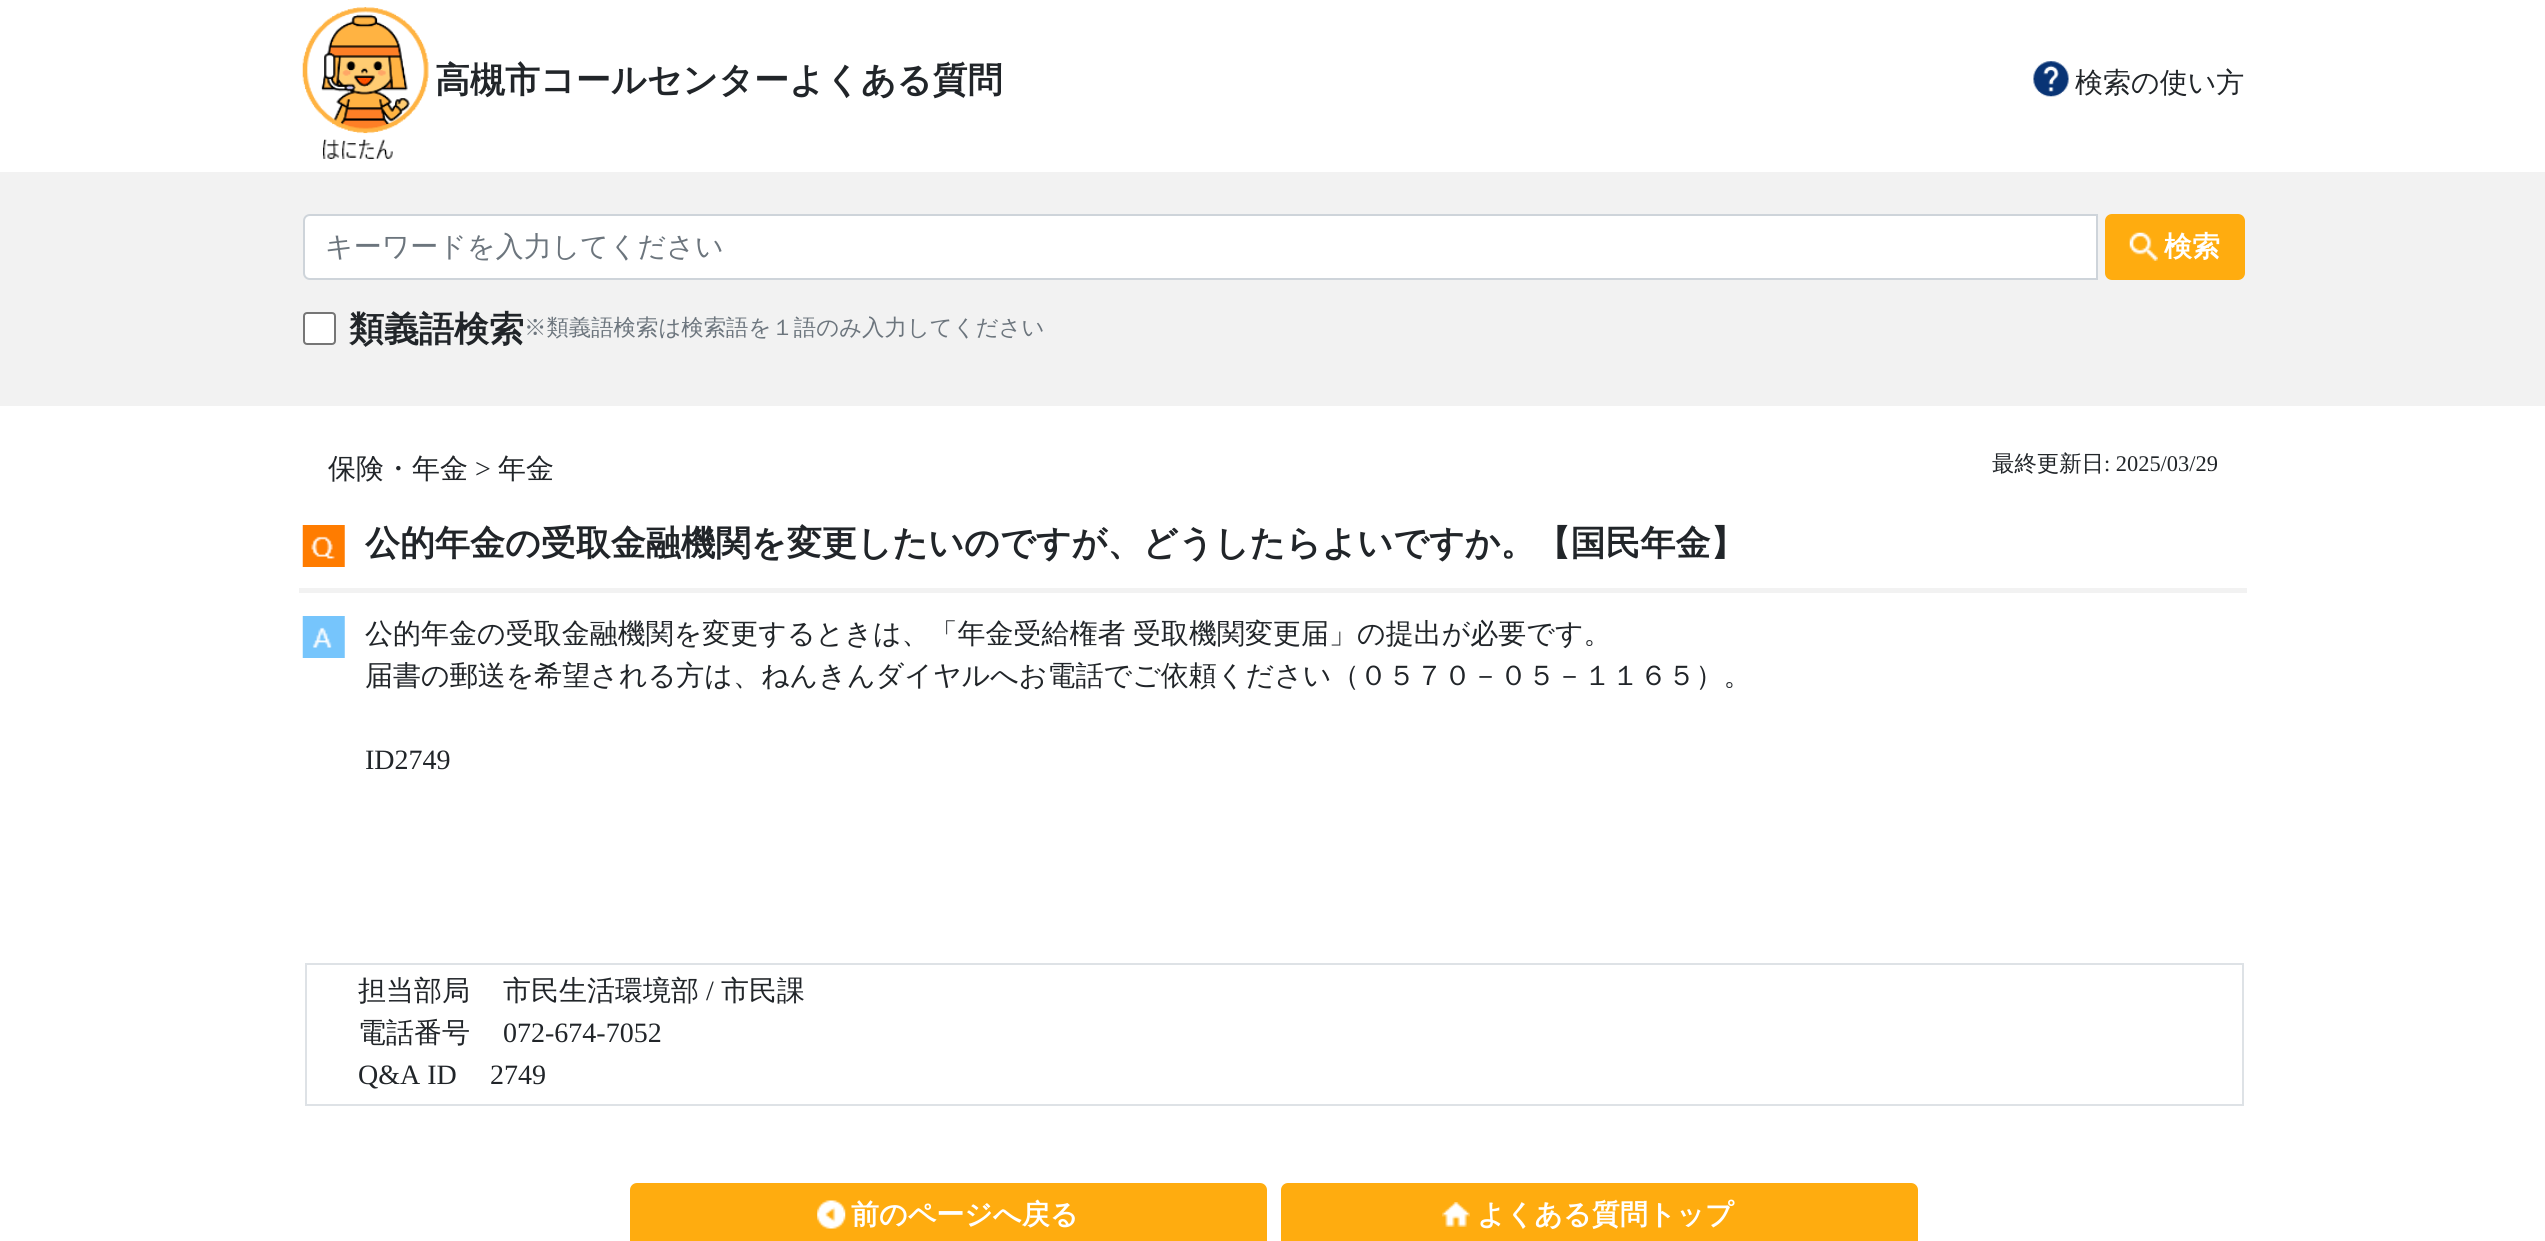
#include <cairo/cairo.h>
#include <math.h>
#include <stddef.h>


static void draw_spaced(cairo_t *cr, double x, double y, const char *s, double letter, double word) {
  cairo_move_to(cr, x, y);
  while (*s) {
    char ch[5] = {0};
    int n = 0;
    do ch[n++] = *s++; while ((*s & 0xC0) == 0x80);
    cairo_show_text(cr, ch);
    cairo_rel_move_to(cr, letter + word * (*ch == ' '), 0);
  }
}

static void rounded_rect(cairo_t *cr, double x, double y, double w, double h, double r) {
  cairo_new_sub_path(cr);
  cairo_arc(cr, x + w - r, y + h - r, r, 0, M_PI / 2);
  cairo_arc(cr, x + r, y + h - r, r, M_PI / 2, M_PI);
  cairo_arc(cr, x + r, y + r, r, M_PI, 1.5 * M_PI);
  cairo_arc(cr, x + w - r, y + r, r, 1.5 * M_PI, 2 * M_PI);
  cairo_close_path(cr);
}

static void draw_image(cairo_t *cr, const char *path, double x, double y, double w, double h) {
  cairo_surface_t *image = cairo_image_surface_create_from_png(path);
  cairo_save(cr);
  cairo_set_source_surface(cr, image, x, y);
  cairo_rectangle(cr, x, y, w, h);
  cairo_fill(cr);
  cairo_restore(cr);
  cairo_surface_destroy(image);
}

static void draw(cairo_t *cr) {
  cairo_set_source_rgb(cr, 1, 1, 1);
  cairo_paint(cr);
  draw_image(cr, "images/1.png", 302, 7, 127, 152);
  draw_image(cr, "images/2.png", 2033, 61, 36, 36);
  cairo_set_source_rgb(cr, 242 / 255.0, 242 / 255.0, 242 / 255.0);
  cairo_rectangle(cr, 0, 172, 2545, 234);
  cairo_fill(cr);
  cairo_set_source_rgb(cr, 1, 1, 1);
  cairo_new_path(cr);
  cairo_move_to(cr, 310, 215);
  cairo_line_to(cr, 2097, 215);
  cairo_line_to(cr, 2097, 279);
  cairo_line_to(cr, 310, 279);
  cairo_curve_to(cr, 306.5, 279, 304, 276.5, 304, 273);
  cairo_line_to(cr, 304, 221);
  cairo_curve_to(cr, 304, 217.5, 306.5, 215, 310, 215);
  cairo_close_path(cr);
  cairo_fill_preserve(cr);
  cairo_set_source_rgb(cr, 206 / 255.0, 212 / 255.0, 218 / 255.0);
  cairo_stroke(cr);
  cairo_set_source_rgb(cr, 1, 172 / 255.0, 15 / 255.0);
  rounded_rect(cr, 2105, 214, 140, 66, 7);
  cairo_fill(cr);
  draw_image(cr, "images/3.png", 2129, 232, 29, 29);
  cairo_set_source_rgb(cr, 1, 1, 1);
  rounded_rect(cr, 304, 313, 31, 31, 3);
  cairo_fill_preserve(cr);
  cairo_set_source_rgb(cr, 118 / 255.0, 118 / 255.0, 118 / 255.0);
  cairo_stroke(cr);
  cairo_set_source_rgb(cr, 242 / 255.0, 242 / 255.0, 242 / 255.0);
  cairo_rectangle(cr, 299, 588, 1948, 5);
  cairo_fill(cr);
  draw_image(cr, "images/4.png", 302, 525, 43, 42);
  draw_image(cr, "images/5.png", 302, 616, 43, 42);
  cairo_rectangle(cr, 306, 964, 1937, 141);
  cairo_set_source_rgb(cr, 222 / 255.0, 226 / 255.0, 230 / 255.0);
  cairo_stroke(cr);
  cairo_set_source_rgb(cr, 1, 172 / 255.0, 15 / 255.0);
  rounded_rect(cr, 630, 1183, 637, 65, 7);
  cairo_fill(cr);
  draw_image(cr, "images/6.png", 817, 1200, 29, 29);
  rounded_rect(cr, 1281, 1183, 637, 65, 7);
  cairo_fill(cr);
  draw_image(cr, "images/7.png", 1442, 1202, 28, 25);
  cairo_select_font_face(cr, "WenQuanYi Zen Hei", CAIRO_FONT_SLANT_NORMAL, CAIRO_FONT_WEIGHT_BOLD);
  cairo_set_font_size(cr, 35);
  cairo_set_source_rgb(cr, 33 / 255.0, 37 / 255.0, 41 / 255.0);
  cairo_move_to(cr, 435, 92);
  cairo_show_text(cr, "高槻市コールセンターよくある質問");
  cairo_select_font_face(cr, "WenQuanYi Zen Hei Medium", CAIRO_FONT_SLANT_NORMAL, CAIRO_FONT_WEIGHT_NORMAL);
  cairo_set_font_size(cr, 28);
  cairo_move_to(cr, 2075, 92);
  cairo_show_text(cr, "検索の使い方");
  cairo_set_source_rgb(cr, 108 / 255.0, 117 / 255.0, 125 / 255.0);
  cairo_move_to(cr, 325, 256);
  cairo_show_text(cr, "キーワードを入力してください");
  cairo_select_font_face(cr, "WenQuanYi Zen Hei", CAIRO_FONT_SLANT_NORMAL, CAIRO_FONT_WEIGHT_BOLD);
  cairo_set_source_rgb(cr, 1, 1, 1);
  cairo_move_to(cr, 2164, 256);
  cairo_show_text(cr, "検索");
  cairo_set_font_size(cr, 35);
  cairo_set_source_rgb(cr, 33 / 255.0, 37 / 255.0, 41 / 255.0);
  cairo_move_to(cr, 349, 341);
  cairo_show_text(cr, "類義語検索");
  cairo_select_font_face(cr, "WenQuanYi Zen Hei Medium", CAIRO_FONT_SLANT_NORMAL, CAIRO_FONT_WEIGHT_NORMAL);
  cairo_set_font_size(cr, 22.4);
  cairo_set_source_rgb(cr, 108 / 255.0, 117 / 255.0, 125 / 255.0);
  cairo_move_to(cr, 524, 335);
  cairo_show_text(cr, "※類義語検索は検索語を１語のみ入力してください");
  cairo_set_font_size(cr, 28);
  cairo_set_source_rgb(cr, 33 / 255.0, 37 / 255.0, 41 / 255.0);
  cairo_move_to(cr, 328, 478);
  cairo_show_text(cr, "保険・年金");
  cairo_select_font_face(cr, "Liberation Serif", CAIRO_FONT_SLANT_NORMAL, CAIRO_FONT_WEIGHT_NORMAL);
  cairo_move_to(cr, 475, 478);
  cairo_show_text(cr, ">");
  cairo_select_font_face(cr, "WenQuanYi Zen Hei Medium", CAIRO_FONT_SLANT_NORMAL, CAIRO_FONT_WEIGHT_NORMAL);
  cairo_move_to(cr, 498, 478);
  cairo_show_text(cr, "年金");
  cairo_set_font_size(cr, 22.4);
  cairo_move_to(cr, 1992, 471);
  cairo_show_text(cr, "最終更新日");
  cairo_select_font_face(cr, "Liberation Serif", CAIRO_FONT_SLANT_NORMAL, CAIRO_FONT_WEIGHT_NORMAL);
  cairo_move_to(cr, 2104, 471);
  cairo_show_text(cr, ": 2025/03/29");
  cairo_select_font_face(cr, "WenQuanYi Zen Hei", CAIRO_FONT_SLANT_NORMAL, CAIRO_FONT_WEIGHT_BOLD);
  cairo_set_font_size(cr, 35);
  cairo_move_to(cr, 365, 555);
  cairo_show_text(cr, "公的年金の受取金融機関を変更したいのですが、どうしたらよいですか。【国民年金】");
  cairo_select_font_face(cr, "WenQuanYi Zen Hei Medium", CAIRO_FONT_SLANT_NORMAL, CAIRO_FONT_WEIGHT_NORMAL);
  cairo_set_font_size(cr, 28);
  draw_spaced(cr, 365, 643, "公的年金の受取金融機関を変更するときは、「年金受給権者 受取機関変更届」の提出が必要です。", 0, -1);
  cairo_move_to(cr, 365, 685);
  cairo_show_text(cr, "届書の郵送を希望される方は、ねんきんダイヤルへお電話でご依頼ください（０５７０－０５－１１６５）。");
  cairo_select_font_face(cr, "Liberation Serif", CAIRO_FONT_SLANT_NORMAL, CAIRO_FONT_WEIGHT_NORMAL);
  cairo_move_to(cr, 365, 769);
  cairo_show_text(cr, "ID2749");
  cairo_select_font_face(cr, "WenQuanYi Zen Hei Medium", CAIRO_FONT_SLANT_NORMAL, CAIRO_FONT_WEIGHT_NORMAL);
  cairo_move_to(cr, 358, 1000);
  cairo_show_text(cr, "担当部局");
  cairo_move_to(cr, 503, 1000);
  cairo_show_text(cr, "市民生活環境部");
  cairo_select_font_face(cr, "Liberation Serif", CAIRO_FONT_SLANT_NORMAL, CAIRO_FONT_WEIGHT_NORMAL);
  cairo_move_to(cr, 706, 1000);
  cairo_show_text(cr, "/");
  cairo_select_font_face(cr, "WenQuanYi Zen Hei Medium", CAIRO_FONT_SLANT_NORMAL, CAIRO_FONT_WEIGHT_NORMAL);
  cairo_move_to(cr, 721, 1000);
  cairo_show_text(cr, "市民課");
  cairo_move_to(cr, 358, 1042);
  cairo_show_text(cr, "電話番号");
  cairo_select_font_face(cr, "Liberation Serif", CAIRO_FONT_SLANT_NORMAL, CAIRO_FONT_WEIGHT_NORMAL);
  cairo_move_to(cr, 503, 1042);
  cairo_show_text(cr, "072-674-7052");
  cairo_move_to(cr, 358, 1084);
  cairo_show_text(cr, "Q&A ID");
  cairo_move_to(cr, 490, 1084);
  cairo_show_text(cr, "2749");
  cairo_select_font_face(cr, "WenQuanYi Zen Hei", CAIRO_FONT_SLANT_NORMAL, CAIRO_FONT_WEIGHT_BOLD);
  cairo_set_source_rgb(cr, 1, 1, 1);
  cairo_move_to(cr, 851, 1224);
  cairo_show_text(cr, "前のページへ戻る");
  cairo_move_to(cr, 1477, 1224);
  cairo_show_text(cr, "よくある質問トップ");
}

int main(void) {
  cairo_surface_t *surface = cairo_image_surface_create(CAIRO_FORMAT_RGB24, 2545, 1241);
  cairo_t *cr = cairo_create(surface);
  cairo_font_options_t *options = cairo_font_options_create();
  cairo_font_options_set_hint_metrics(options, CAIRO_HINT_METRICS_OFF);
  cairo_font_options_set_hint_style(options, CAIRO_HINT_STYLE_NONE);
  cairo_set_font_options(cr, options);
  cairo_set_miter_limit(cr, 4);
  draw(cr);
  cairo_surface_write_to_png(surface, "out.png");
  cairo_font_options_destroy(options);
  cairo_destroy(cr);
  cairo_surface_destroy(surface);
  return 0;
}
